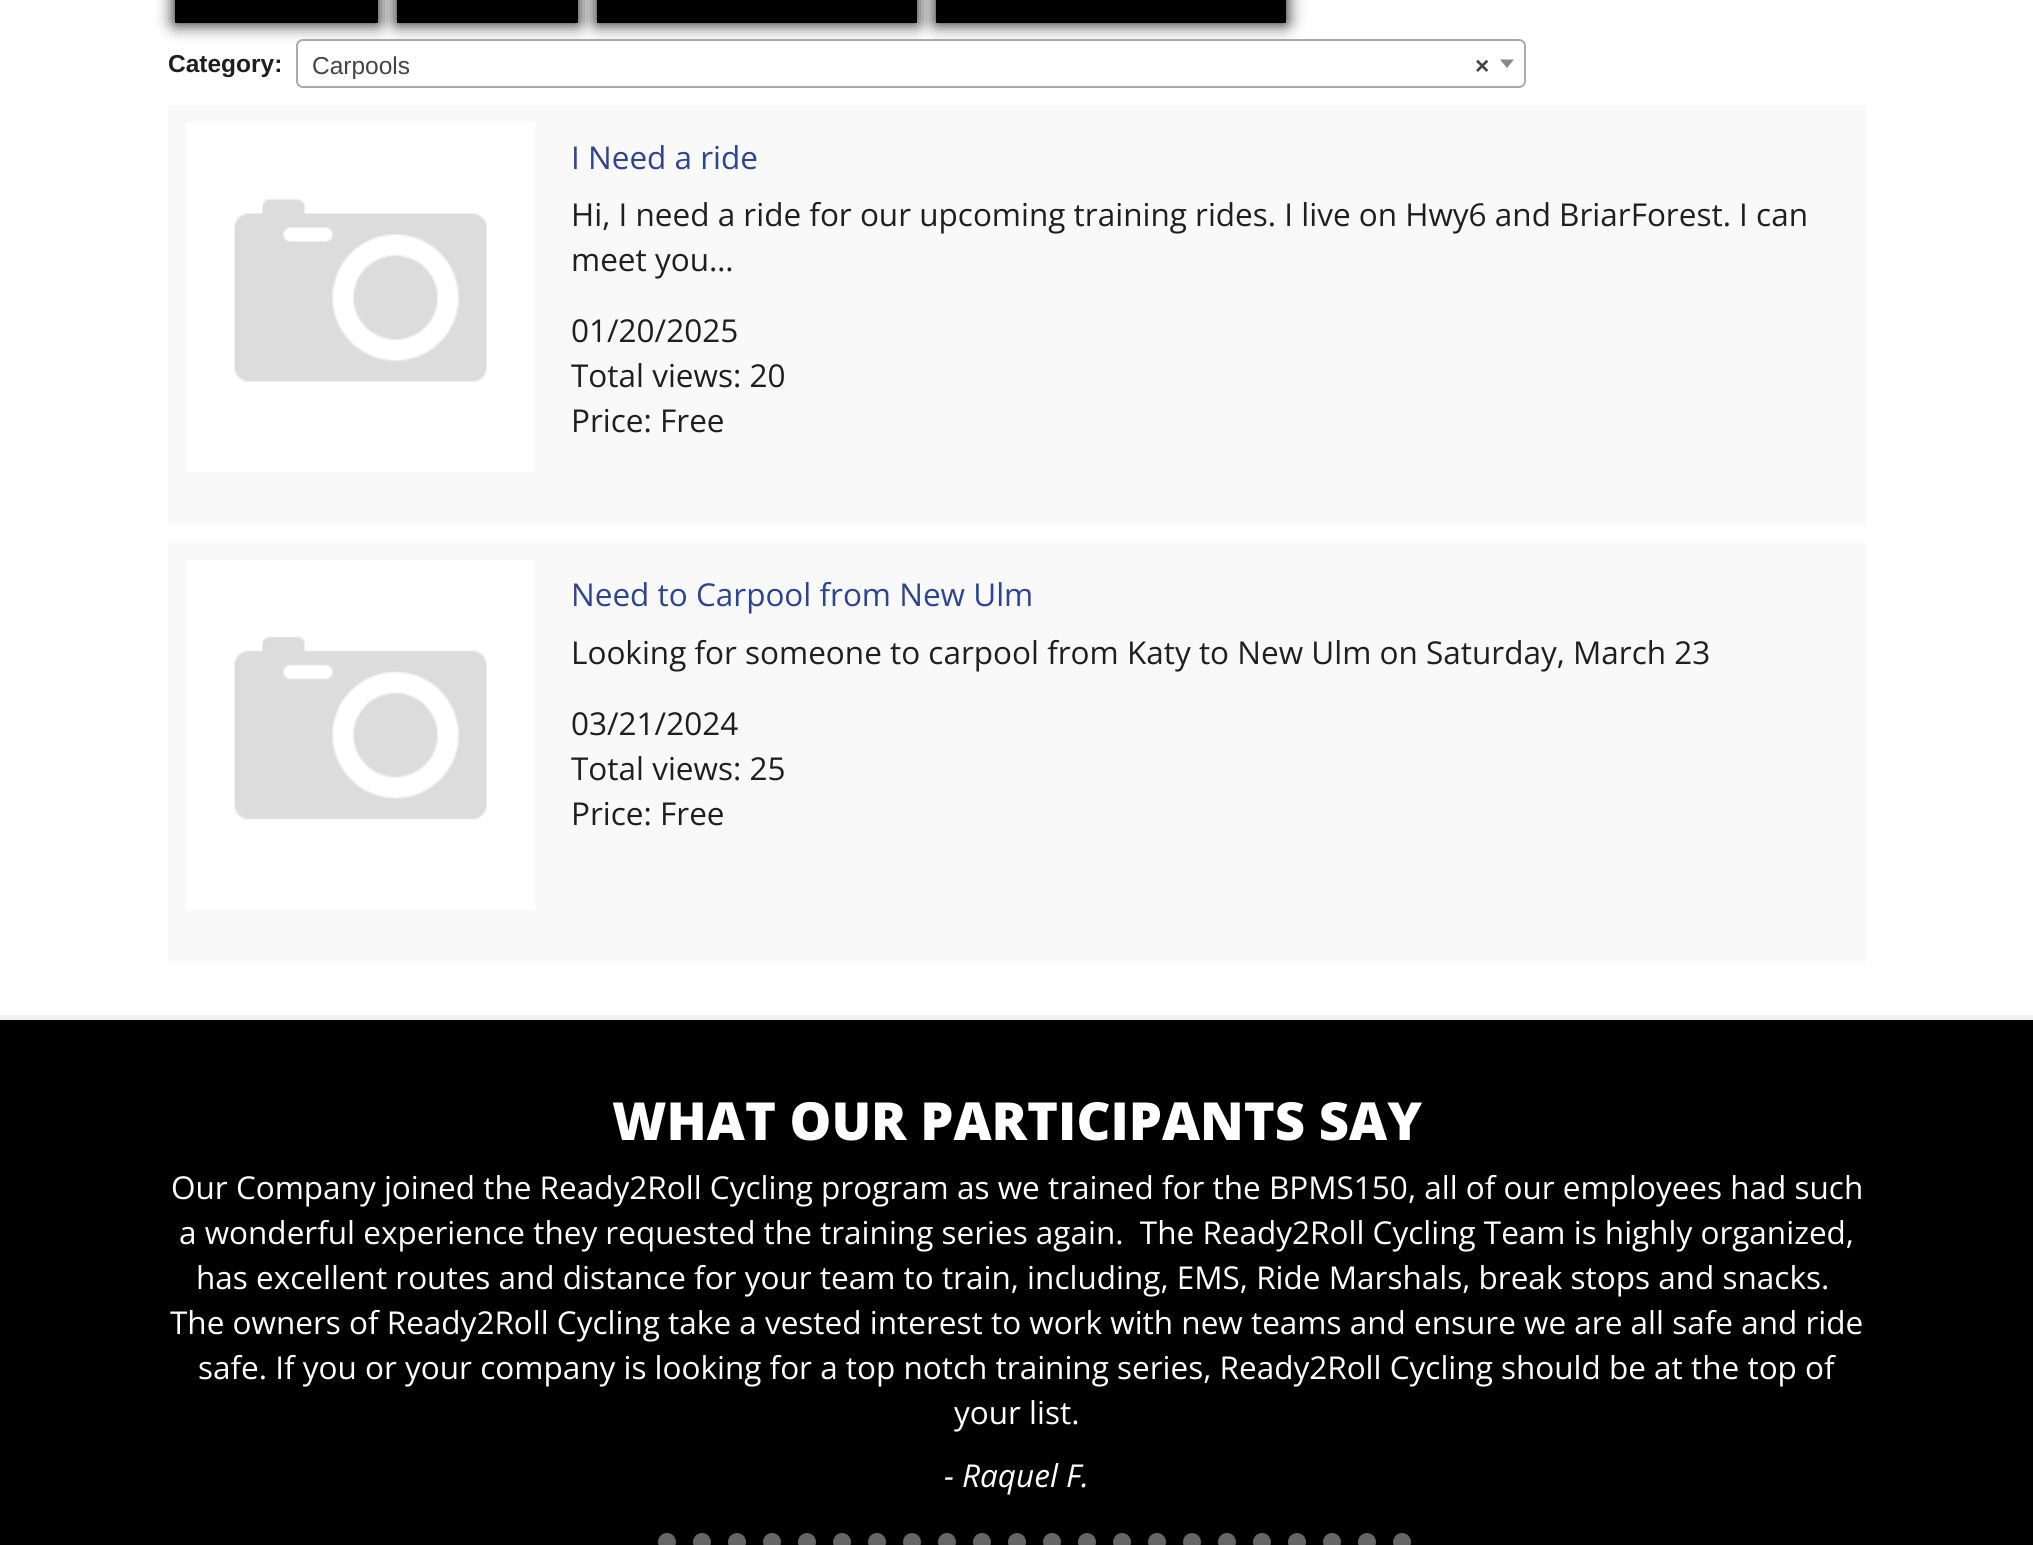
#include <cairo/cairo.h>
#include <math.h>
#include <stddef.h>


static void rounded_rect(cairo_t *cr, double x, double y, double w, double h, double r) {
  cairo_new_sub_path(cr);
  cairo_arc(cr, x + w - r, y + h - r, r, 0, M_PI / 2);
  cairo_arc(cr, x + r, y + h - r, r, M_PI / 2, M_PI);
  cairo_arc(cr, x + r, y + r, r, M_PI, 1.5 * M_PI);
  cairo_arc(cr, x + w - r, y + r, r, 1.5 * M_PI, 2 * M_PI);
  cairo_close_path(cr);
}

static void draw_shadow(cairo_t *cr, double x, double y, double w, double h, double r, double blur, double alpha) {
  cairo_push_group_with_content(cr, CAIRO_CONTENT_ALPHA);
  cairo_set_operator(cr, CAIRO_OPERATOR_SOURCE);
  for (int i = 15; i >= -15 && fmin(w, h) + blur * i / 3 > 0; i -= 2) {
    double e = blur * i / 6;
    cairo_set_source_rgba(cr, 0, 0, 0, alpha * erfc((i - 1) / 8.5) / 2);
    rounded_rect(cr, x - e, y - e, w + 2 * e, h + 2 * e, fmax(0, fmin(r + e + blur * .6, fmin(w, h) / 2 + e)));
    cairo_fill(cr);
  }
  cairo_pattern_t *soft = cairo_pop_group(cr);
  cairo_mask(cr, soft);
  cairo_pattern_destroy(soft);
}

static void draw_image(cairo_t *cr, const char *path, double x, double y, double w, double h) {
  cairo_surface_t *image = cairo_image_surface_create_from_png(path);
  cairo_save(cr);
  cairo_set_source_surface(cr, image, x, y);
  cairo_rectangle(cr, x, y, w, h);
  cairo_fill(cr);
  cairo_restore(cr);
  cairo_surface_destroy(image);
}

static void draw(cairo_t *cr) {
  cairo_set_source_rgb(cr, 1, 1, 1);
  cairo_paint(cr);
  cairo_set_source_rgb(cr, 0, 0, 0);
  draw_shadow(cr, 175, -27, 203, 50, 0, 9, 1);
  cairo_set_source_rgb(cr, 0, 0, 0);
  cairo_rectangle(cr, 175, 0, 203, 23);
  cairo_fill(cr);
  cairo_set_source_rgb(cr, 0, 0, 0);
  draw_shadow(cr, 397, -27, 181, 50, 0, 9, 1);
  cairo_set_source_rgb(cr, 0, 0, 0);
  cairo_rectangle(cr, 397, 0, 181, 23);
  cairo_fill(cr);
  cairo_set_source_rgb(cr, 0, 0, 0);
  draw_shadow(cr, 597, -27, 320, 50, 0, 9, 1);
  cairo_set_source_rgb(cr, 0, 0, 0);
  cairo_rectangle(cr, 597, 0, 320, 23);
  cairo_fill(cr);
  cairo_set_source_rgb(cr, 0, 0, 0);
  draw_shadow(cr, 936, -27, 350, 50, 0, 9, 1);
  cairo_set_source_rgb(cr, 0, 0, 0);
  cairo_rectangle(cr, 936, 0, 350, 23);
  cairo_fill(cr);
  cairo_set_source_rgb(cr, 1, 1, 1);
  rounded_rect(cr, 297, 40, 1228, 47, 6);
  cairo_fill_preserve(cr);
  cairo_set_source_rgb(cr, 170 / 255.0, 170 / 255.0, 170 / 255.0);
  cairo_stroke(cr);
  cairo_set_source_rgb(cr, 136 / 255.0, 136 / 255.0, 136 / 255.0);
  cairo_new_path(cr);
  cairo_move_to(cr, 1500, 59.5);
  cairo_line_to(cr, 1514, 59.5);
  cairo_line_to(cr, 1507, 68);
  cairo_close_path(cr);
  cairo_fill(cr);
  cairo_set_source_rgb(cr, 249 / 255.0, 249 / 255.0, 249 / 255.0);
  cairo_rectangle(cr, 168, 105, 1698, 420);
  cairo_fill(cr);
  draw_image(cr, "images/1.png", 186, 123, 349, 349);
  cairo_rectangle(cr, 168, 543, 1698, 420);
  cairo_fill(cr);
  draw_image(cr, "images/2.png", 186, 560, 349, 350);
  cairo_set_source_rgb(cr, 0, 0, 0);
  cairo_rectangle(cr, 0, 1020, 2033, 525);
  cairo_fill(cr);
  cairo_set_source_rgb(cr, 241 / 255.0, 241 / 255.0, 241 / 255.0);
  cairo_rectangle(cr, 0, 1015, 2033, 5);
  cairo_fill(cr);
  cairo_set_source_rgb(cr, 102 / 255.0, 102 / 255.0, 102 / 255.0);
  cairo_arc(cr, 667, 1542, 9, 0, 2 * M_PI);
  cairo_fill(cr);
  cairo_arc(cr, 702, 1542, 9, 0, 2 * M_PI);
  cairo_fill(cr);
  cairo_arc(cr, 737, 1542, 9, 0, 2 * M_PI);
  cairo_fill(cr);
  cairo_arc(cr, 772, 1542, 9, 0, 2 * M_PI);
  cairo_fill(cr);
  cairo_arc(cr, 807, 1542, 9, 0, 2 * M_PI);
  cairo_fill(cr);
  cairo_arc(cr, 842, 1542, 9, 0, 2 * M_PI);
  cairo_fill(cr);
  cairo_arc(cr, 877, 1542, 9, 0, 2 * M_PI);
  cairo_fill(cr);
  cairo_arc(cr, 912, 1542, 9, 0, 2 * M_PI);
  cairo_fill(cr);
  cairo_arc(cr, 947, 1542, 9, 0, 2 * M_PI);
  cairo_fill(cr);
  cairo_arc(cr, 982, 1542, 9, 0, 2 * M_PI);
  cairo_fill(cr);
  cairo_arc(cr, 1017, 1542, 9, 0, 2 * M_PI);
  cairo_fill(cr);
  cairo_arc(cr, 1052, 1542, 9, 0, 2 * M_PI);
  cairo_fill(cr);
  cairo_arc(cr, 1087, 1542, 9, 0, 2 * M_PI);
  cairo_fill(cr);
  cairo_arc(cr, 1122, 1542, 9, 0, 2 * M_PI);
  cairo_fill(cr);
  cairo_arc(cr, 1157, 1542, 9, 0, 2 * M_PI);
  cairo_fill(cr);
  cairo_arc(cr, 1192, 1542, 9, 0, 2 * M_PI);
  cairo_fill(cr);
  cairo_arc(cr, 1227, 1542, 9, 0, 2 * M_PI);
  cairo_fill(cr);
  cairo_arc(cr, 1262, 1542, 9, 0, 2 * M_PI);
  cairo_fill(cr);
  cairo_arc(cr, 1297, 1542, 9, 0, 2 * M_PI);
  cairo_fill(cr);
  cairo_arc(cr, 1332, 1542, 9, 0, 2 * M_PI);
  cairo_fill(cr);
  cairo_arc(cr, 1367, 1542, 9, 0, 2 * M_PI);
  cairo_fill(cr);
  cairo_arc(cr, 1402, 1542, 9, 0, 2 * M_PI);
  cairo_fill(cr);
  cairo_select_font_face(cr, "Liberation Sans", CAIRO_FONT_SLANT_NORMAL, CAIRO_FONT_WEIGHT_BOLD);
  cairo_set_font_size(cr, 24.5);
  cairo_set_source_rgb(cr, 31 / 255.0, 31 / 255.0, 31 / 255.0);
  cairo_move_to(cr, 168, 72);
  cairo_show_text(cr, "Category:");
  cairo_select_font_face(cr, "Liberation Sans", CAIRO_FONT_SLANT_NORMAL, CAIRO_FONT_WEIGHT_NORMAL);
  cairo_set_source_rgb(cr, 68 / 255.0, 68 / 255.0, 68 / 255.0);
  cairo_move_to(cr, 312, 74);
  cairo_show_text(cr, "Carpools");
  cairo_select_font_face(cr, "Liberation Sans", CAIRO_FONT_SLANT_NORMAL, CAIRO_FONT_WEIGHT_BOLD);
  cairo_move_to(cr, 1475, 74);
  cairo_show_text(cr, "×");
  cairo_select_font_face(cr, "Open Sans", CAIRO_FONT_SLANT_NORMAL, CAIRO_FONT_WEIGHT_NORMAL);
  cairo_set_font_size(cr, 31.5);
  cairo_set_source_rgb(cr, 45 / 255.0, 68 / 255.0, 145 / 255.0);
  cairo_move_to(cr, 571, 169);
  cairo_show_text(cr, "I Need a ride");
  cairo_set_source_rgb(cr, 31 / 255.0, 31 / 255.0, 31 / 255.0);
  cairo_move_to(cr, 571, 226);
  cairo_show_text(cr, "Hi, I need a ride for our upcoming training rides. I live on Hwy6 and BriarForest. I can");
  cairo_move_to(cr, 571, 271);
  cairo_show_text(cr, "meet you…");
  cairo_move_to(cr, 571, 342);
  cairo_show_text(cr, "01/20/2025");
  cairo_move_to(cr, 571, 387);
  cairo_show_text(cr, "Total views: 20");
  cairo_move_to(cr, 571, 432);
  cairo_show_text(cr, "Price: Free");
  cairo_set_source_rgb(cr, 45 / 255.0, 68 / 255.0, 145 / 255.0);
  cairo_move_to(cr, 571, 606);
  cairo_show_text(cr, "Need to Carpool from New Ulm");
  cairo_set_source_rgb(cr, 31 / 255.0, 31 / 255.0, 31 / 255.0);
  cairo_move_to(cr, 571, 664);
  cairo_show_text(cr, "Looking for someone to carpool from Katy to New Ulm on Saturday, March 23");
  cairo_move_to(cr, 571, 735);
  cairo_show_text(cr, "03/21/2024");
  cairo_move_to(cr, 571, 780);
  cairo_show_text(cr, "Total views: 25");
  cairo_move_to(cr, 571, 825);
  cairo_show_text(cr, "Price: Free");
  cairo_select_font_face(cr, "Open Sans ExtraBold", CAIRO_FONT_SLANT_NORMAL, CAIRO_FONT_WEIGHT_NORMAL);
  cairo_set_font_size(cr, 52.5);
  cairo_set_source_rgb(cr, 1, 1, 1);
  cairo_move_to(cr, 612, 1140);
  cairo_show_text(cr, "WHAT OUR PARTICIPANTS SAY");
  cairo_select_font_face(cr, "Open Sans", CAIRO_FONT_SLANT_NORMAL, CAIRO_FONT_WEIGHT_NORMAL);
  cairo_set_font_size(cr, 31.5);
  cairo_move_to(cr, 171, 1199);
  cairo_show_text(cr, "Our Company joined the Ready2Roll Cycling program as we trained for the BPMS150, all of our employees had such");
  cairo_move_to(cr, 179, 1244);
  cairo_show_text(cr, "a wonderful experience they requested the training series again.  The Ready2Roll Cycling Team is highly organized,");
  cairo_move_to(cr, 196, 1289);
  cairo_show_text(cr, "has excellent routes and distance for your team to train, including, EMS, Ride Marshals, break stops and snacks.");
  cairo_move_to(cr, 170, 1334);
  cairo_show_text(cr, "The owners of Ready2Roll Cycling take a vested interest to work with new teams and ensure we are all safe and ride");
  cairo_move_to(cr, 198, 1379);
  cairo_show_text(cr, "safe. If you or your company is looking for a top notch training series, Ready2Roll Cycling should be at the top of");
  cairo_move_to(cr, 954, 1424);
  cairo_show_text(cr, "your list.");
  cairo_select_font_face(cr, "Open Sans", CAIRO_FONT_SLANT_ITALIC, CAIRO_FONT_WEIGHT_NORMAL);
  cairo_move_to(cr, 944, 1487);
  cairo_show_text(cr, "- Raquel F.");
}

int main(void) {
  cairo_surface_t *surface = cairo_image_surface_create(CAIRO_FORMAT_RGB24, 2033, 1545);
  cairo_t *cr = cairo_create(surface);
  cairo_font_options_t *options = cairo_font_options_create();
  cairo_font_options_set_hint_metrics(options, CAIRO_HINT_METRICS_OFF);
  cairo_font_options_set_hint_style(options, CAIRO_HINT_STYLE_NONE);
  cairo_set_font_options(cr, options);
  cairo_set_miter_limit(cr, 4);
  draw(cr);
  cairo_surface_write_to_png(surface, "out.png");
  cairo_font_options_destroy(options);
  cairo_destroy(cr);
  cairo_surface_destroy(surface);
  return 0;
}
